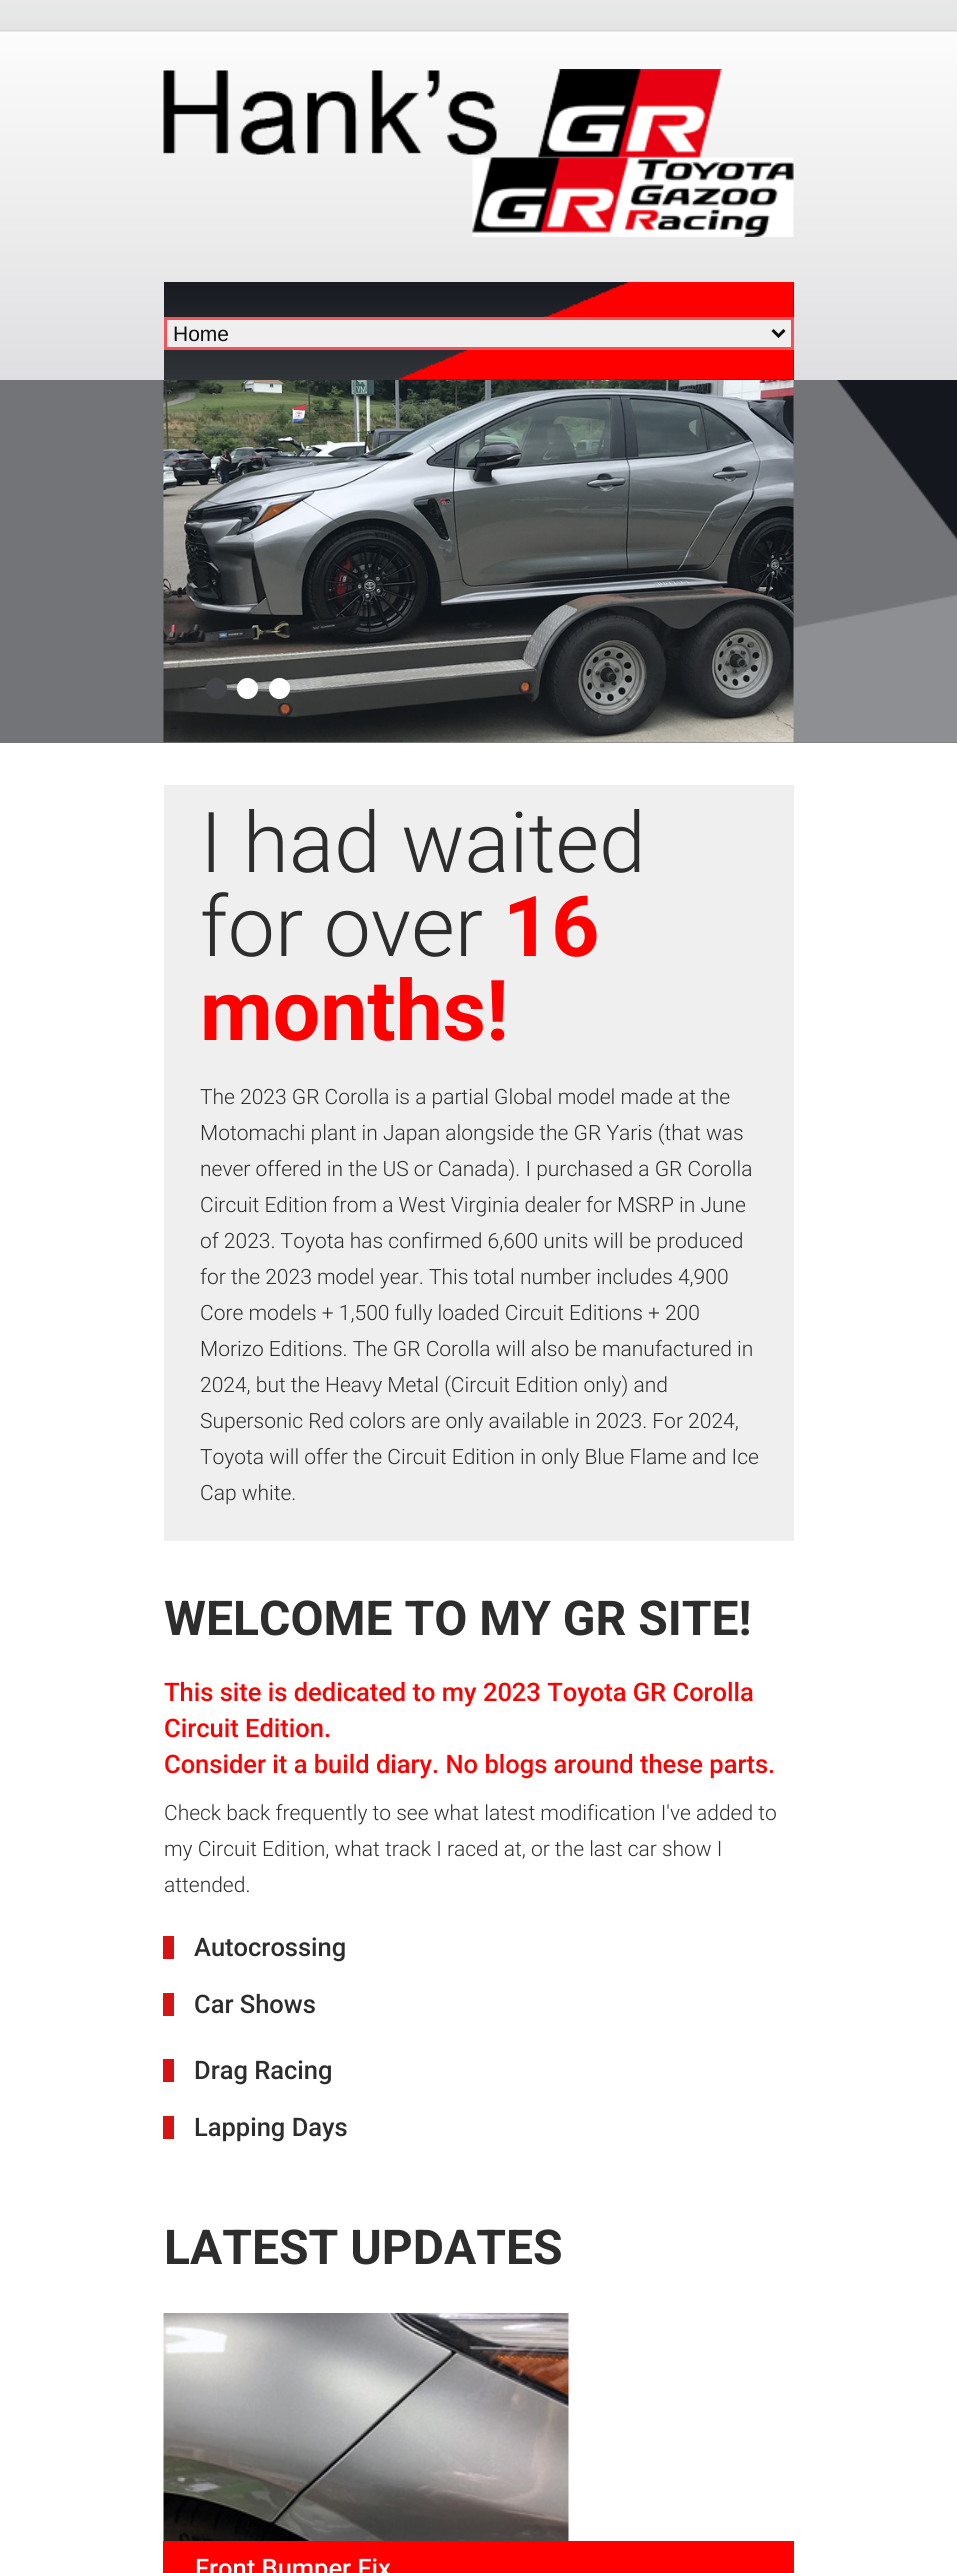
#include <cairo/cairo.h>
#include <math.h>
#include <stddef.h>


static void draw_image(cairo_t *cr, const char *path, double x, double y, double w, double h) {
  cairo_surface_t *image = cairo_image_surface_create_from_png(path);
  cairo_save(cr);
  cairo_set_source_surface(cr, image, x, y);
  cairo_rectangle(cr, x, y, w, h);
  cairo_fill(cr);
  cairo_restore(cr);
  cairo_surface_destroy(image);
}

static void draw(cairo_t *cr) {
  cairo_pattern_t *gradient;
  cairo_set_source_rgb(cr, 1, 1, 1);
  cairo_paint(cr);
  gradient = cairo_pattern_create_linear(479, 31, 479, 380);
  cairo_pattern_add_color_stop_rgba(gradient, 0, 252 / 255.0, 252 / 255.0, 252 / 255.0, 1);
  cairo_pattern_add_color_stop_rgba(gradient, 1, 223 / 255.0, 223 / 255.0, 225 / 255.0, 1);
  cairo_set_source(cr, gradient);
  cairo_pattern_destroy(gradient);
  cairo_rectangle(cr, 0, 32, 957, 348);
  cairo_fill(cr);
  draw_image(cr, "images/1.png", 0, 0, 957, 32);
  draw_image(cr, "images/3.png", 472, 157, 322, 80);
  draw_image(cr, "images/2.png", 163, 69, 559, 89);
  gradient = cairo_pattern_create_linear(479, 282, 479, 380);
  cairo_pattern_add_color_stop_rgba(gradient, 0, 23 / 255.0, 26 / 255.0, 32 / 255.0, 1);
  cairo_pattern_add_color_stop_rgba(gradient, 1, 48 / 255.0, 51 / 255.0, 56 / 255.0, 1);
  cairo_set_source(cr, gradient);
  cairo_pattern_destroy(gradient);
  cairo_rectangle(cr, 164, 282, 630, 98);
  cairo_fill(cr);
  draw_image(cr, "images/4.png", 399, 282, 395, 98);
  cairo_set_source_rgb(cr, 239 / 255.0, 239 / 255.0, 239 / 255.0);
  cairo_rectangle(cr, 165.5, 318.5, 627, 30);
  cairo_fill_preserve(cr);
  cairo_set_source_rgb(cr, 243 / 255.0, 83 / 255.0, 86 / 255.0);
  cairo_set_line_width(cr, 3);
  cairo_stroke(cr);
  cairo_new_path(cr);
  cairo_move_to(cr, 772.5, 330);
  cairo_line_to(cr, 778.5, 336);
  cairo_line_to(cr, 784.5, 330);
  cairo_set_source_rgb(cr, 16 / 255.0, 16 / 255.0, 16 / 255.0);
  cairo_stroke(cr);
  cairo_set_source_rgb(cr, 114 / 255.0, 116 / 255.0, 119 / 255.0);
  cairo_rectangle(cr, 0, 742, 957, 1);
  cairo_fill(cr);
  draw_image(cr, "images/5.png", 0, 380, 957, 363);
  draw_image(cr, "images/6.png", 163, 380, 631, 363);
  cairo_set_source_rgb(cr, 67 / 255.0, 69 / 255.0, 74 / 255.0);
  cairo_arc(cr, 216.5, 688.5, 10.5, 0, 2 * M_PI);
  cairo_fill(cr);
  cairo_set_source_rgb(cr, 1, 1, 1);
  cairo_arc(cr, 247.5, 688.5, 10.5, 0, 2 * M_PI);
  cairo_fill(cr);
  cairo_arc(cr, 279.5, 688.5, 10.5, 0, 2 * M_PI);
  cairo_fill(cr);
  cairo_set_source_rgb(cr, 239 / 255.0, 239 / 255.0, 240 / 255.0);
  cairo_rectangle(cr, 164, 785, 630, 756);
  cairo_fill(cr);
  cairo_set_source_rgb(cr, 214 / 255.0, 20 / 255.0, 20 / 255.0);
  cairo_rectangle(cr, 163, 1936, 11, 23);
  cairo_fill(cr);
  cairo_rectangle(cr, 163, 1993, 11, 23);
  cairo_fill(cr);
  cairo_rectangle(cr, 163, 2059, 11, 23);
  cairo_fill(cr);
  cairo_rectangle(cr, 163, 2116, 11, 23);
  cairo_fill(cr);
  draw_image(cr, "images/7.png", 163, 2313, 406, 228);
  cairo_set_source_rgb(cr, 1, 0, 0);
  cairo_rectangle(cr, 163, 2541, 631, 32);
  cairo_fill(cr);
  cairo_select_font_face(cr, "Liberation Sans", CAIRO_FONT_SLANT_NORMAL, CAIRO_FONT_WEIGHT_NORMAL);
  cairo_set_font_size(cr, 21);
  cairo_set_source_rgb(cr, 16 / 255.0, 16 / 255.0, 16 / 255.0);
  cairo_move_to(cr, 173, 341);
  cairo_show_text(cr, "Home");
  cairo_select_font_face(cr, "Roboto Light", CAIRO_FONT_SLANT_NORMAL, CAIRO_FONT_WEIGHT_NORMAL);
  cairo_set_font_size(cr, 84);
  cairo_set_source_rgb(cr, 45 / 255.0, 45 / 255.0, 45 / 255.0);
  cairo_move_to(cr, 200, 872);
  cairo_show_text(cr, "I had waited");
  cairo_move_to(cr, 200, 956);
  cairo_show_text(cr, "for over");
  cairo_select_font_face(cr, "Roboto", CAIRO_FONT_SLANT_NORMAL, CAIRO_FONT_WEIGHT_BOLD);
  cairo_set_source_rgb(cr, 1, 0, 0);
  cairo_move_to(cr, 503, 956);
  cairo_show_text(cr, "16");
  cairo_move_to(cr, 200, 1040);
  cairo_show_text(cr, "months!");
  cairo_select_font_face(cr, "Roboto Light", CAIRO_FONT_SLANT_NORMAL, CAIRO_FONT_WEIGHT_NORMAL);
  cairo_set_font_size(cr, 21);
  cairo_set_source_rgb(cr, 45 / 255.0, 45 / 255.0, 45 / 255.0);
  cairo_move_to(cr, 200, 1104);
  cairo_show_text(cr, "The 2023 GR Corolla is a partial Global model made at the");
  cairo_move_to(cr, 200, 1140);
  cairo_show_text(cr, "Motomachi plant in Japan alongside the GR Yaris (that was");
  cairo_move_to(cr, 200, 1176);
  cairo_show_text(cr, "never offered in the US or Canada). I purchased a GR Corolla");
  cairo_move_to(cr, 200, 1212);
  cairo_show_text(cr, "Circuit Edition from a West Virginia dealer for MSRP in June");
  cairo_move_to(cr, 200, 1248);
  cairo_show_text(cr, "of 2023. Toyota has confirmed 6,600 units will be produced");
  cairo_move_to(cr, 200, 1284);
  cairo_show_text(cr, "for the 2023 model year. This total number includes 4,900");
  cairo_move_to(cr, 200, 1320);
  cairo_show_text(cr, "Core models + 1,500 fully loaded Circuit Editions + 200");
  cairo_move_to(cr, 200, 1356);
  cairo_show_text(cr, "Morizo Editions. The GR Corolla will also be manufactured in");
  cairo_move_to(cr, 200, 1392);
  cairo_show_text(cr, "2024, but the Heavy Metal (Circuit Edition only) and");
  cairo_move_to(cr, 200, 1428);
  cairo_show_text(cr, "Supersonic Red colors are only available in 2023. For 2024,");
  cairo_move_to(cr, 200, 1464);
  cairo_show_text(cr, "Toyota will offer the Circuit Edition in only Blue Flame and Ice");
  cairo_move_to(cr, 200, 1500);
  cairo_show_text(cr, "Cap white.");
  cairo_select_font_face(cr, "Roboto", CAIRO_FONT_SLANT_NORMAL, CAIRO_FONT_WEIGHT_BOLD);
  cairo_set_font_size(cr, 48);
  cairo_move_to(cr, 164, 1635);
  cairo_show_text(cr, "WELCOME TO MY GR SITE!");
  cairo_select_font_face(cr, "Roboto Medium", CAIRO_FONT_SLANT_NORMAL, CAIRO_FONT_WEIGHT_NORMAL);
  cairo_set_font_size(cr, 25.5);
  cairo_set_source_rgb(cr, 1, 0, 0);
  cairo_move_to(cr, 164, 1701);
  cairo_show_text(cr, "This site is dedicated to my 2023 Toyota GR Corolla");
  cairo_move_to(cr, 164, 1737);
  cairo_show_text(cr, "Circuit Edition.");
  cairo_move_to(cr, 164, 1773);
  cairo_show_text(cr, "Consider it a build diary. No blogs around these parts.");
  cairo_select_font_face(cr, "Roboto Light", CAIRO_FONT_SLANT_NORMAL, CAIRO_FONT_WEIGHT_NORMAL);
  cairo_set_font_size(cr, 21);
  cairo_set_source_rgb(cr, 45 / 255.0, 45 / 255.0, 45 / 255.0);
  cairo_move_to(cr, 164, 1820);
  cairo_show_text(cr, "Check back frequently to see what latest modification I've added to");
  cairo_move_to(cr, 164, 1856);
  cairo_show_text(cr, "my Circuit Edition, what track I raced at, or the last car show I");
  cairo_move_to(cr, 164, 1892);
  cairo_show_text(cr, "attended.");
  cairo_select_font_face(cr, "Roboto Medium", CAIRO_FONT_SLANT_NORMAL, CAIRO_FONT_WEIGHT_NORMAL);
  cairo_set_font_size(cr, 25.5);
  cairo_move_to(cr, 194, 1956);
  cairo_show_text(cr, "Autocrossing");
  cairo_move_to(cr, 194, 2013);
  cairo_show_text(cr, "Car Shows");
  cairo_move_to(cr, 194, 2079);
  cairo_show_text(cr, "Drag Racing");
  cairo_move_to(cr, 194, 2136);
  cairo_show_text(cr, "Lapping Days");
  cairo_select_font_face(cr, "Roboto", CAIRO_FONT_SLANT_NORMAL, CAIRO_FONT_WEIGHT_BOLD);
  cairo_set_font_size(cr, 48);
  cairo_move_to(cr, 164, 2264);
  cairo_show_text(cr, "LATEST UPDATES");
  cairo_select_font_face(cr, "Roboto Medium", CAIRO_FONT_SLANT_NORMAL, CAIRO_FONT_WEIGHT_NORMAL);
  cairo_set_font_size(cr, 25.5);
  cairo_set_source_rgb(cr, 1, 1, 1);
  cairo_move_to(cr, 195, 2577);
  cairo_show_text(cr, "Front Bumper Fix");
}

int main(void) {
  cairo_surface_t *surface = cairo_image_surface_create(CAIRO_FORMAT_RGB24, 957, 2573);
  cairo_t *cr = cairo_create(surface);
  cairo_font_options_t *options = cairo_font_options_create();
  cairo_font_options_set_hint_metrics(options, CAIRO_HINT_METRICS_OFF);
  cairo_font_options_set_hint_style(options, CAIRO_HINT_STYLE_NONE);
  cairo_set_font_options(cr, options);
  cairo_set_miter_limit(cr, 4);
  draw(cr);
  cairo_surface_write_to_png(surface, "out.png");
  cairo_font_options_destroy(options);
  cairo_destroy(cr);
  cairo_surface_destroy(surface);
  return 0;
}
